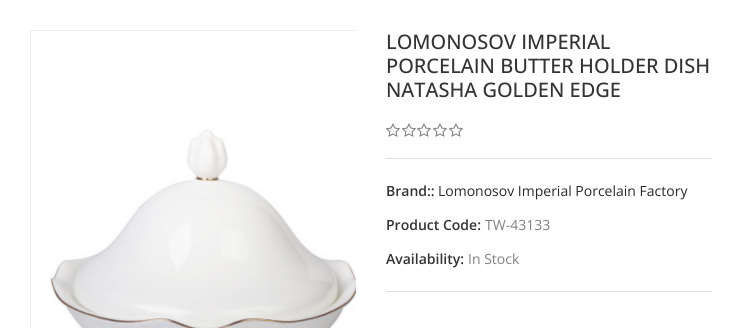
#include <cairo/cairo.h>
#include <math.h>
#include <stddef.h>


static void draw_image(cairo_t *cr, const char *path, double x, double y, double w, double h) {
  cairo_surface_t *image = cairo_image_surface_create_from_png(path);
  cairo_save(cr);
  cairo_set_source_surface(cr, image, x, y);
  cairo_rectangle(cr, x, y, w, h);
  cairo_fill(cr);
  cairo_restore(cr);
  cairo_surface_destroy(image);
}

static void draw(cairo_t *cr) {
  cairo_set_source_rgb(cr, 1, 1, 1);
  cairo_paint(cr);
  cairo_save(cr);
  cairo_rectangle(cr, 30, 30, 326, 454);
  cairo_clip(cr);
  cairo_rectangle(cr, 30.5, 30.5, 349, 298);
  cairo_set_source_rgb(cr, 237 / 255.0, 237 / 255.0, 237 / 255.0);
  cairo_set_line_width(cr, 1);
  cairo_stroke(cr);
  cairo_restore(cr);
  draw_image(cr, "images/1.png", 47, 129, 309, 199);
  draw_image(cr, "images/2.png", 386, 123, 14, 14);
  draw_image(cr, "images/2.png", 402, 123, 14, 14);
  draw_image(cr, "images/2.png", 417, 123, 14, 14);
  draw_image(cr, "images/2.png", 433, 123, 14, 14);
  draw_image(cr, "images/2.png", 449, 123, 14, 14);
  cairo_set_source_rgb(cr, 224 / 255.0, 224 / 255.0, 224 / 255.0);
  cairo_rectangle(cr, 386, 158, 326, 1);
  cairo_fill(cr);
  cairo_rectangle(cr, 386, 291, 326, 1);
  cairo_fill(cr);
  cairo_select_font_face(cr, "Open Sans Medium", CAIRO_FONT_SLANT_NORMAL, CAIRO_FONT_WEIGHT_NORMAL);
  cairo_set_font_size(cr, 20);
  cairo_set_source_rgb(cr, 51 / 255.0, 51 / 255.0, 51 / 255.0);
  cairo_move_to(cr, 386, 49);
  cairo_show_text(cr, "LOMONOSOV IMPERIAL");
  cairo_move_to(cr, 386, 73);
  cairo_show_text(cr, "PORCELAIN BUTTER HOLDER DISH");
  cairo_move_to(cr, 386, 97);
  cairo_show_text(cr, "NATASHA GOLDEN EDGE");
  cairo_select_font_face(cr, "Open Sans SemiBold", CAIRO_FONT_SLANT_NORMAL, CAIRO_FONT_WEIGHT_NORMAL);
  cairo_set_font_size(cr, 14);
  cairo_move_to(cr, 386, 196);
  cairo_show_text(cr, "Brand::");
  cairo_select_font_face(cr, "Open Sans", CAIRO_FONT_SLANT_NORMAL, CAIRO_FONT_WEIGHT_NORMAL);
  cairo_set_source_rgb(cr, 41 / 255.0, 41 / 255.0, 41 / 255.0);
  cairo_move_to(cr, 438, 196);
  cairo_show_text(cr, "Lomonosov Imperial Porcelain Factory");
  cairo_select_font_face(cr, "Open Sans SemiBold", CAIRO_FONT_SLANT_NORMAL, CAIRO_FONT_WEIGHT_NORMAL);
  cairo_set_source_rgb(cr, 51 / 255.0, 51 / 255.0, 51 / 255.0);
  cairo_move_to(cr, 386, 230);
  cairo_show_text(cr, "Product Code:");
  cairo_select_font_face(cr, "Open Sans", CAIRO_FONT_SLANT_NORMAL, CAIRO_FONT_WEIGHT_NORMAL);
  cairo_set_source_rgb(cr, 128 / 255.0, 128 / 255.0, 128 / 255.0);
  cairo_move_to(cr, 485, 230);
  cairo_show_text(cr, "TW-43133");
  cairo_select_font_face(cr, "Open Sans SemiBold", CAIRO_FONT_SLANT_NORMAL, CAIRO_FONT_WEIGHT_NORMAL);
  cairo_set_source_rgb(cr, 51 / 255.0, 51 / 255.0, 51 / 255.0);
  cairo_move_to(cr, 386, 264);
  cairo_show_text(cr, "Availability:");
  cairo_select_font_face(cr, "Open Sans", CAIRO_FONT_SLANT_NORMAL, CAIRO_FONT_WEIGHT_NORMAL);
  cairo_set_source_rgb(cr, 128 / 255.0, 128 / 255.0, 128 / 255.0);
  cairo_move_to(cr, 468, 264);
  cairo_show_text(cr, "In Stock");
}

int main(void) {
  cairo_surface_t *surface = cairo_image_surface_create(CAIRO_FORMAT_RGB24, 742, 328);
  cairo_t *cr = cairo_create(surface);
  cairo_font_options_t *options = cairo_font_options_create();
  cairo_font_options_set_hint_metrics(options, CAIRO_HINT_METRICS_OFF);
  cairo_font_options_set_hint_style(options, CAIRO_HINT_STYLE_NONE);
  cairo_set_font_options(cr, options);
  cairo_set_miter_limit(cr, 4);
  draw(cr);
  cairo_surface_write_to_png(surface, "out.png");
  cairo_font_options_destroy(options);
  cairo_destroy(cr);
  cairo_surface_destroy(surface);
  return 0;
}
